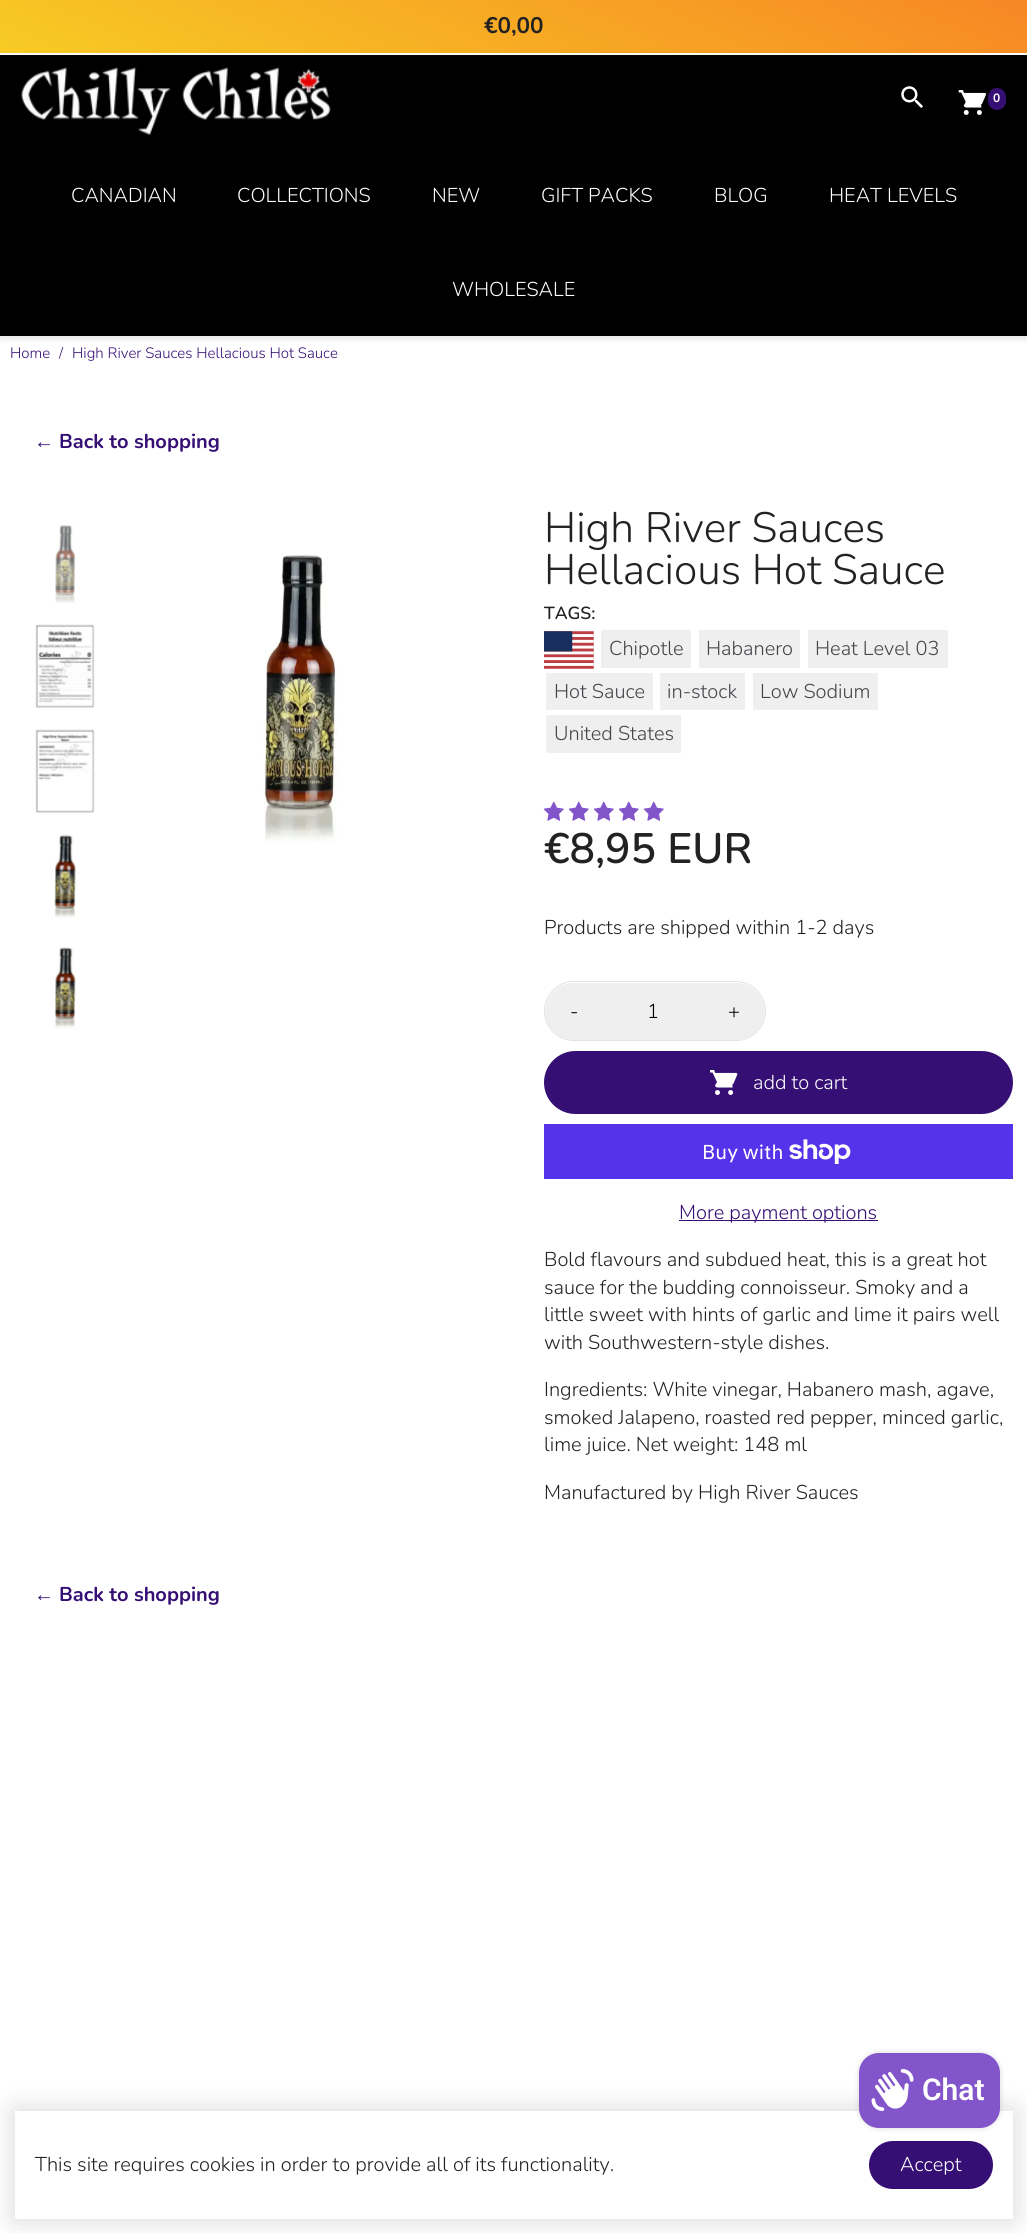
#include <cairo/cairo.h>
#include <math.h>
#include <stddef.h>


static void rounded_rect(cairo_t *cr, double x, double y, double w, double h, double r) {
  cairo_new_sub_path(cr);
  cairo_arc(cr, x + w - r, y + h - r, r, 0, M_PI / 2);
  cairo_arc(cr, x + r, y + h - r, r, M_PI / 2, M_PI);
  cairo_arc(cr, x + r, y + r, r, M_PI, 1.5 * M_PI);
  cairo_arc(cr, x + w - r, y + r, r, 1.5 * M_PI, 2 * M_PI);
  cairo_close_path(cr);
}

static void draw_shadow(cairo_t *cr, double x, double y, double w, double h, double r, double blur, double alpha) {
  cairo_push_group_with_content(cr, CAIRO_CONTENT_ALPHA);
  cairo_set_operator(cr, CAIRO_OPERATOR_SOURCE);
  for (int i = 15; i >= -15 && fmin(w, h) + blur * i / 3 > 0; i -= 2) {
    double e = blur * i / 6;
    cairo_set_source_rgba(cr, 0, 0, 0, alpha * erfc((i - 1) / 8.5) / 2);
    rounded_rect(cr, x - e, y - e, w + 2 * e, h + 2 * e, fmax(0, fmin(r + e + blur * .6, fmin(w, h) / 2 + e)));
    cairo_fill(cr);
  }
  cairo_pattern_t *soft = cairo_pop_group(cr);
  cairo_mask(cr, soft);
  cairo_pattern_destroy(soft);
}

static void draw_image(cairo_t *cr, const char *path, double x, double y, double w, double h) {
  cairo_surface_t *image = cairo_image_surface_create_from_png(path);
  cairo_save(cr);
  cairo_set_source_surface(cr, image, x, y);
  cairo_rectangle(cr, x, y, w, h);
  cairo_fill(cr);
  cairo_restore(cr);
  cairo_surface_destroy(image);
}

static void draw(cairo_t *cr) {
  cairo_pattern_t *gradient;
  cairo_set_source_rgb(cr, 1, 1, 1);
  cairo_paint(cr);
  cairo_set_source_rgb(cr, 0, 0, 0);
  draw_shadow(cr, 0, 58, 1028, 281, 0, 3, 0.1);
  gradient = cairo_pattern_create_linear(412, 245, 616, -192);
  cairo_pattern_add_color_stop_rgba(gradient, 0, 247 / 255.0, 203 / 255.0, 36 / 255.0, 1);
  cairo_pattern_add_color_stop_rgba(gradient, 1, 247 / 255.0, 135 / 255.0, 36 / 255.0, 1);
  cairo_set_source(cr, gradient);
  cairo_pattern_destroy(gradient);
  cairo_rectangle(cr, 0, 0, 1027, 53);
  cairo_fill(cr);
  cairo_set_source_rgb(cr, 0, 0, 0);
  cairo_rectangle(cr, 0, 55, 1027, 281);
  cairo_fill(cr);
  draw_image(cr, "images/1.png", 21, 67, 310, 69);
  draw_image(cr, "images/2.png", 901, 86, 22, 22);
  draw_image(cr, "images/3.png", 958, 90, 29, 25);
  cairo_set_source_rgb(cr, 54 / 255.0, 15 / 255.0, 116 / 255.0);
  rounded_rect(cr, 988, 88, 18, 22, 9);
  cairo_fill(cr);
  draw_image(cr, "images/4.png", 55, 525, 21, 79);
  draw_image(cr, "images/5.png", 35, 624, 60, 84);
  draw_image(cr, "images/6.png", 35, 729, 60, 84);
  draw_image(cr, "images/7.png", 54, 834, 23, 84);
  draw_image(cr, "images/8.png", 55, 947, 21, 82);
  draw_image(cr, "images/9.png", 262, 555, 77, 287);
  draw_image(cr, "images/10.png", 544, 631, 50, 38);
  cairo_set_source_rgb(cr, 239 / 255.0, 239 / 255.0, 239 / 255.0);
  cairo_rectangle(cr, 601, 630, 90, 38);
  cairo_fill(cr);
  cairo_rectangle(cr, 699, 630, 101, 38);
  cairo_fill(cr);
  cairo_rectangle(cr, 808, 630, 140, 38);
  cairo_fill(cr);
  cairo_rectangle(cr, 546, 673, 107, 37);
  cairo_fill(cr);
  cairo_rectangle(cr, 660, 673, 85, 37);
  cairo_fill(cr);
  cairo_rectangle(cr, 753, 673, 125, 37);
  cairo_fill(cr);
  cairo_rectangle(cr, 546, 715, 135, 38);
  cairo_fill(cr);
  draw_image(cr, "images/11.png", 543, 801, 21, 20);
  draw_image(cr, "images/11.png", 568, 801, 21, 20);
  draw_image(cr, "images/11.png", 593, 801, 21, 20);
  draw_image(cr, "images/11.png", 618, 801, 21, 20);
  draw_image(cr, "images/11.png", 643, 801, 21, 20);
  rounded_rect(cr, 544.5, 981.5, 221, 59, 29.5);
  cairo_set_source_rgb(cr, 226 / 255.0, 226 / 255.0, 226 / 255.0);
  cairo_set_line_width(cr, 1);
  cairo_stroke(cr);
  cairo_set_source_rgb(cr, 239 / 255.0, 239 / 255.0, 239 / 255.0);
  cairo_new_path(cr);
  cairo_move_to(cr, 573.5, 983);
  cairo_line_to(cr, 604, 983);
  cairo_line_to(cr, 604, 1040);
  cairo_line_to(cr, 573.5, 1040);
  cairo_curve_to(cr, 558, 1040, 545, 1027, 545, 1011.5);
  cairo_curve_to(cr, 545, 996, 558, 983, 573.5, 983);
  cairo_close_path(cr);
  cairo_fill(cr);
  cairo_rectangle(cr, 604, 983, 100, 57);
  cairo_fill(cr);
  cairo_new_path(cr);
  cairo_move_to(cr, 704, 983);
  cairo_line_to(cr, 736.5, 983);
  cairo_curve_to(cr, 752, 983, 765, 996, 765, 1011.5);
  cairo_curve_to(cr, 765, 1027, 752, 1040, 736.5, 1040);
  cairo_line_to(cr, 704, 1040);
  cairo_close_path(cr);
  cairo_fill(cr);
  cairo_set_source_rgb(cr, 54 / 255.0, 15 / 255.0, 116 / 255.0);
  rounded_rect(cr, 544, 1051, 469, 63, 31.5);
  cairo_fill(cr);
  draw_image(cr, "images/12.png", 710, 1070, 28, 25);
  cairo_set_source_rgb(cr, 84 / 255.0, 51 / 255.0, 235 / 255.0);
  cairo_rectangle(cr, 544, 1124, 469, 55);
  cairo_fill(cr);
  draw_image(cr, "images/13.png", 789, 1139, 62, 25);
  cairo_set_source_rgb(cr, 54 / 255.0, 15 / 255.0, 116 / 255.0);
  cairo_rectangle(cr, 679, 1220, 199, 1);
  cairo_fill(cr);
  cairo_set_source_rgb(cr, 0, 0, 0);
  draw_shadow(cr, 15, 2111, 998, 108, 0, 15, 0.16);
  cairo_set_source_rgb(cr, 1, 1, 1);
  cairo_rectangle(cr, 15, 2111, 998, 108);
  cairo_fill(cr);
  cairo_set_source_rgb(cr, 0, 0, 0);
  draw_shadow(cr, 859, 2053, 141, 75, 20, 3, 0.15);
  cairo_set_source_rgb(cr, 131 / 255.0, 85 / 255.0, 203 / 255.0);
  rounded_rect(cr, 859, 2053, 141, 75, 20);
  cairo_fill(cr);
  draw_image(cr, "images/14.png", 871, 2069, 43, 42);
  cairo_set_source_rgb(cr, 54 / 255.0, 15 / 255.0, 116 / 255.0);
  rounded_rect(cr, 869, 2141, 124, 48, 24);
  cairo_fill(cr);
  cairo_select_font_face(cr, "Nunito", CAIRO_FONT_SLANT_NORMAL, CAIRO_FONT_WEIGHT_BOLD);
  cairo_set_font_size(cr, 22.5);
  cairo_set_source_rgb(cr, 34 / 255.0, 34 / 255.0, 34 / 255.0);
  cairo_move_to(cr, 484, 33);
  cairo_show_text(cr, "€0,00");
  cairo_set_font_size(cr, 12);
  cairo_set_source_rgb(cr, 1, 1, 1);
  cairo_move_to(cr, 993, 102);
  cairo_show_text(cr, "0");
  cairo_select_font_face(cr, "Nunito Light", CAIRO_FONT_SLANT_NORMAL, CAIRO_FONT_WEIGHT_NORMAL);
  cairo_set_font_size(cr, 20);
  cairo_move_to(cr, 71, 202);
  cairo_show_text(cr, "CANADIAN");
  cairo_move_to(cr, 237, 202);
  cairo_show_text(cr, "COLLECTIONS");
  cairo_move_to(cr, 432, 202);
  cairo_show_text(cr, "NEW");
  cairo_move_to(cr, 541, 202);
  cairo_show_text(cr, "GIFT PACKS");
  cairo_move_to(cr, 714, 202);
  cairo_show_text(cr, "BLOG");
  cairo_move_to(cr, 829, 202);
  cairo_show_text(cr, "HEAT LEVELS");
  cairo_move_to(cr, 452, 296);
  cairo_show_text(cr, "WHOLESALE");
  cairo_set_font_size(cr, 15);
  cairo_set_source_rgb(cr, 54 / 255.0, 15 / 255.0, 116 / 255.0);
  cairo_move_to(cr, 10, 358);
  cairo_show_text(cr, "Home");
  cairo_move_to(cr, 59, 358);
  cairo_show_text(cr, "/");
  cairo_move_to(cr, 72, 358);
  cairo_show_text(cr, "High River Sauces Hellacious Hot Sauce");
  cairo_select_font_face(cr, "Liberation Sans", CAIRO_FONT_SLANT_NORMAL, CAIRO_FONT_WEIGHT_NORMAL);
  cairo_set_font_size(cr, 20);
  cairo_move_to(cr, 34, 448);
  cairo_show_text(cr, "←");
  cairo_select_font_face(cr, "Nunito", CAIRO_FONT_SLANT_NORMAL, CAIRO_FONT_WEIGHT_BOLD);
  cairo_move_to(cr, 59, 448);
  cairo_show_text(cr, "Back to shopping");
  cairo_select_font_face(cr, "Nunito Light", CAIRO_FONT_SLANT_NORMAL, CAIRO_FONT_WEIGHT_NORMAL);
  cairo_set_font_size(cr, 42.5);
  cairo_set_source_rgb(cr, 34 / 255.0, 34 / 255.0, 34 / 255.0);
  cairo_move_to(cr, 544, 542);
  cairo_show_text(cr, "High River Sauces");
  cairo_move_to(cr, 544, 584);
  cairo_show_text(cr, "Hellacious Hot Sauce");
  cairo_select_font_face(cr, "Nunito SemiBold", CAIRO_FONT_SLANT_NORMAL, CAIRO_FONT_WEIGHT_NORMAL);
  cairo_set_font_size(cr, 17.5);
  cairo_move_to(cr, 544, 619);
  cairo_show_text(cr, "TAGS:");
  cairo_select_font_face(cr, "Nunito Light", CAIRO_FONT_SLANT_NORMAL, CAIRO_FONT_WEIGHT_NORMAL);
  cairo_set_font_size(cr, 20);
  cairo_set_source_rgb(cr, 69 / 255.0, 68 / 255.0, 74 / 255.0);
  cairo_move_to(cr, 609, 655);
  cairo_show_text(cr, "Chipotle");
  cairo_move_to(cr, 706, 655);
  cairo_show_text(cr, "Habanero");
  cairo_move_to(cr, 815, 655);
  cairo_show_text(cr, "Heat Level 03");
  cairo_move_to(cr, 554, 698);
  cairo_show_text(cr, "Hot Sauce");
  cairo_move_to(cr, 667, 698);
  cairo_show_text(cr, "in-stock");
  cairo_move_to(cr, 760, 698);
  cairo_show_text(cr, "Low Sodium");
  cairo_move_to(cr, 554, 740);
  cairo_show_text(cr, "United States");
  cairo_select_font_face(cr, "Nunito SemiBold", CAIRO_FONT_SLANT_NORMAL, CAIRO_FONT_WEIGHT_NORMAL);
  cairo_set_font_size(cr, 42.5);
  cairo_set_source_rgb(cr, 34 / 255.0, 34 / 255.0, 34 / 255.0);
  cairo_move_to(cr, 544, 863);
  cairo_show_text(cr, "€8,95 EUR");
  cairo_select_font_face(cr, "Nunito Light", CAIRO_FONT_SLANT_NORMAL, CAIRO_FONT_WEIGHT_NORMAL);
  cairo_set_font_size(cr, 20);
  cairo_move_to(cr, 544, 934);
  cairo_show_text(cr, "Products are shipped within 1-2 days");
  cairo_set_source_rgb(cr, 0, 0, 0);
  cairo_move_to(cr, 570, 1018);
  cairo_show_text(cr, "-");
  cairo_move_to(cr, 647, 1018);
  cairo_show_text(cr, "1");
  cairo_move_to(cr, 728, 1018);
  cairo_show_text(cr, "+");
  cairo_set_source_rgb(cr, 1, 1, 1);
  cairo_move_to(cr, 753, 1089);
  cairo_show_text(cr, "add to cart");
  cairo_select_font_face(cr, "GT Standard", CAIRO_FONT_SLANT_NORMAL, CAIRO_FONT_WEIGHT_NORMAL);
  cairo_move_to(cr, 702, 1159);
  cairo_show_text(cr, "Buy with");
  cairo_select_font_face(cr, "Nunito Light", CAIRO_FONT_SLANT_NORMAL, CAIRO_FONT_WEIGHT_NORMAL);
  cairo_set_source_rgb(cr, 54 / 255.0, 15 / 255.0, 116 / 255.0);
  cairo_move_to(cr, 679, 1219);
  cairo_show_text(cr, "More payment options");
  cairo_set_source_rgb(cr, 34 / 255.0, 34 / 255.0, 34 / 255.0);
  cairo_move_to(cr, 544, 1266);
  cairo_show_text(cr, "Bold flavours and subdued heat, this is a great hot");
  cairo_move_to(cr, 544, 1294);
  cairo_show_text(cr, "sauce for the budding connoisseur. Smoky and a");
  cairo_move_to(cr, 544, 1321);
  cairo_show_text(cr, "little sweet with hints of garlic and lime it pairs well");
  cairo_move_to(cr, 544, 1349);
  cairo_show_text(cr, "with Southwestern-style dishes.");
  cairo_move_to(cr, 544, 1396);
  cairo_show_text(cr, "Ingredients: White vinegar, Habanero mash, agave,");
  cairo_move_to(cr, 544, 1424);
  cairo_show_text(cr, "smoked Jalapeno, roasted red pepper, minced garlic,");
  cairo_move_to(cr, 544, 1451);
  cairo_show_text(cr, "lime juice. Net weight: 148 ml");
  cairo_move_to(cr, 544, 1499);
  cairo_show_text(cr, "Manufactured by High River Sauces");
  cairo_select_font_face(cr, "Liberation Sans", CAIRO_FONT_SLANT_NORMAL, CAIRO_FONT_WEIGHT_NORMAL);
  cairo_set_source_rgb(cr, 54 / 255.0, 15 / 255.0, 116 / 255.0);
  cairo_move_to(cr, 34, 1601);
  cairo_show_text(cr, "←");
  cairo_select_font_face(cr, "Nunito", CAIRO_FONT_SLANT_NORMAL, CAIRO_FONT_WEIGHT_BOLD);
  cairo_move_to(cr, 59, 1601);
  cairo_show_text(cr, "Back to shopping");
  cairo_select_font_face(cr, "Roboto SemiBold", CAIRO_FONT_SLANT_NORMAL, CAIRO_FONT_WEIGHT_NORMAL);
  cairo_set_font_size(cr, 30);
  cairo_set_source_rgb(cr, 1, 1, 1);
  cairo_move_to(cr, 922, 2100);
  cairo_show_text(cr, "Chat");
  cairo_select_font_face(cr, "Nunito Light", CAIRO_FONT_SLANT_NORMAL, CAIRO_FONT_WEIGHT_NORMAL);
  cairo_set_font_size(cr, 20);
  cairo_set_source_rgb(cr, 34 / 255.0, 34 / 255.0, 34 / 255.0);
  cairo_move_to(cr, 35, 2171);
  cairo_show_text(cr, "This site requires cookies in order to provide all of its functionality.");
  cairo_set_source_rgb(cr, 1, 1, 1);
  cairo_move_to(cr, 900, 2171);
  cairo_show_text(cr, "Accept");
}

int main(void) {
  cairo_surface_t *surface = cairo_image_surface_create(CAIRO_FORMAT_RGB24, 1027, 2233);
  cairo_t *cr = cairo_create(surface);
  cairo_font_options_t *options = cairo_font_options_create();
  cairo_font_options_set_hint_metrics(options, CAIRO_HINT_METRICS_OFF);
  cairo_font_options_set_hint_style(options, CAIRO_HINT_STYLE_NONE);
  cairo_set_font_options(cr, options);
  cairo_set_miter_limit(cr, 4);
  draw(cr);
  cairo_surface_write_to_png(surface, "out.png");
  cairo_font_options_destroy(options);
  cairo_destroy(cr);
  cairo_surface_destroy(surface);
  return 0;
}
